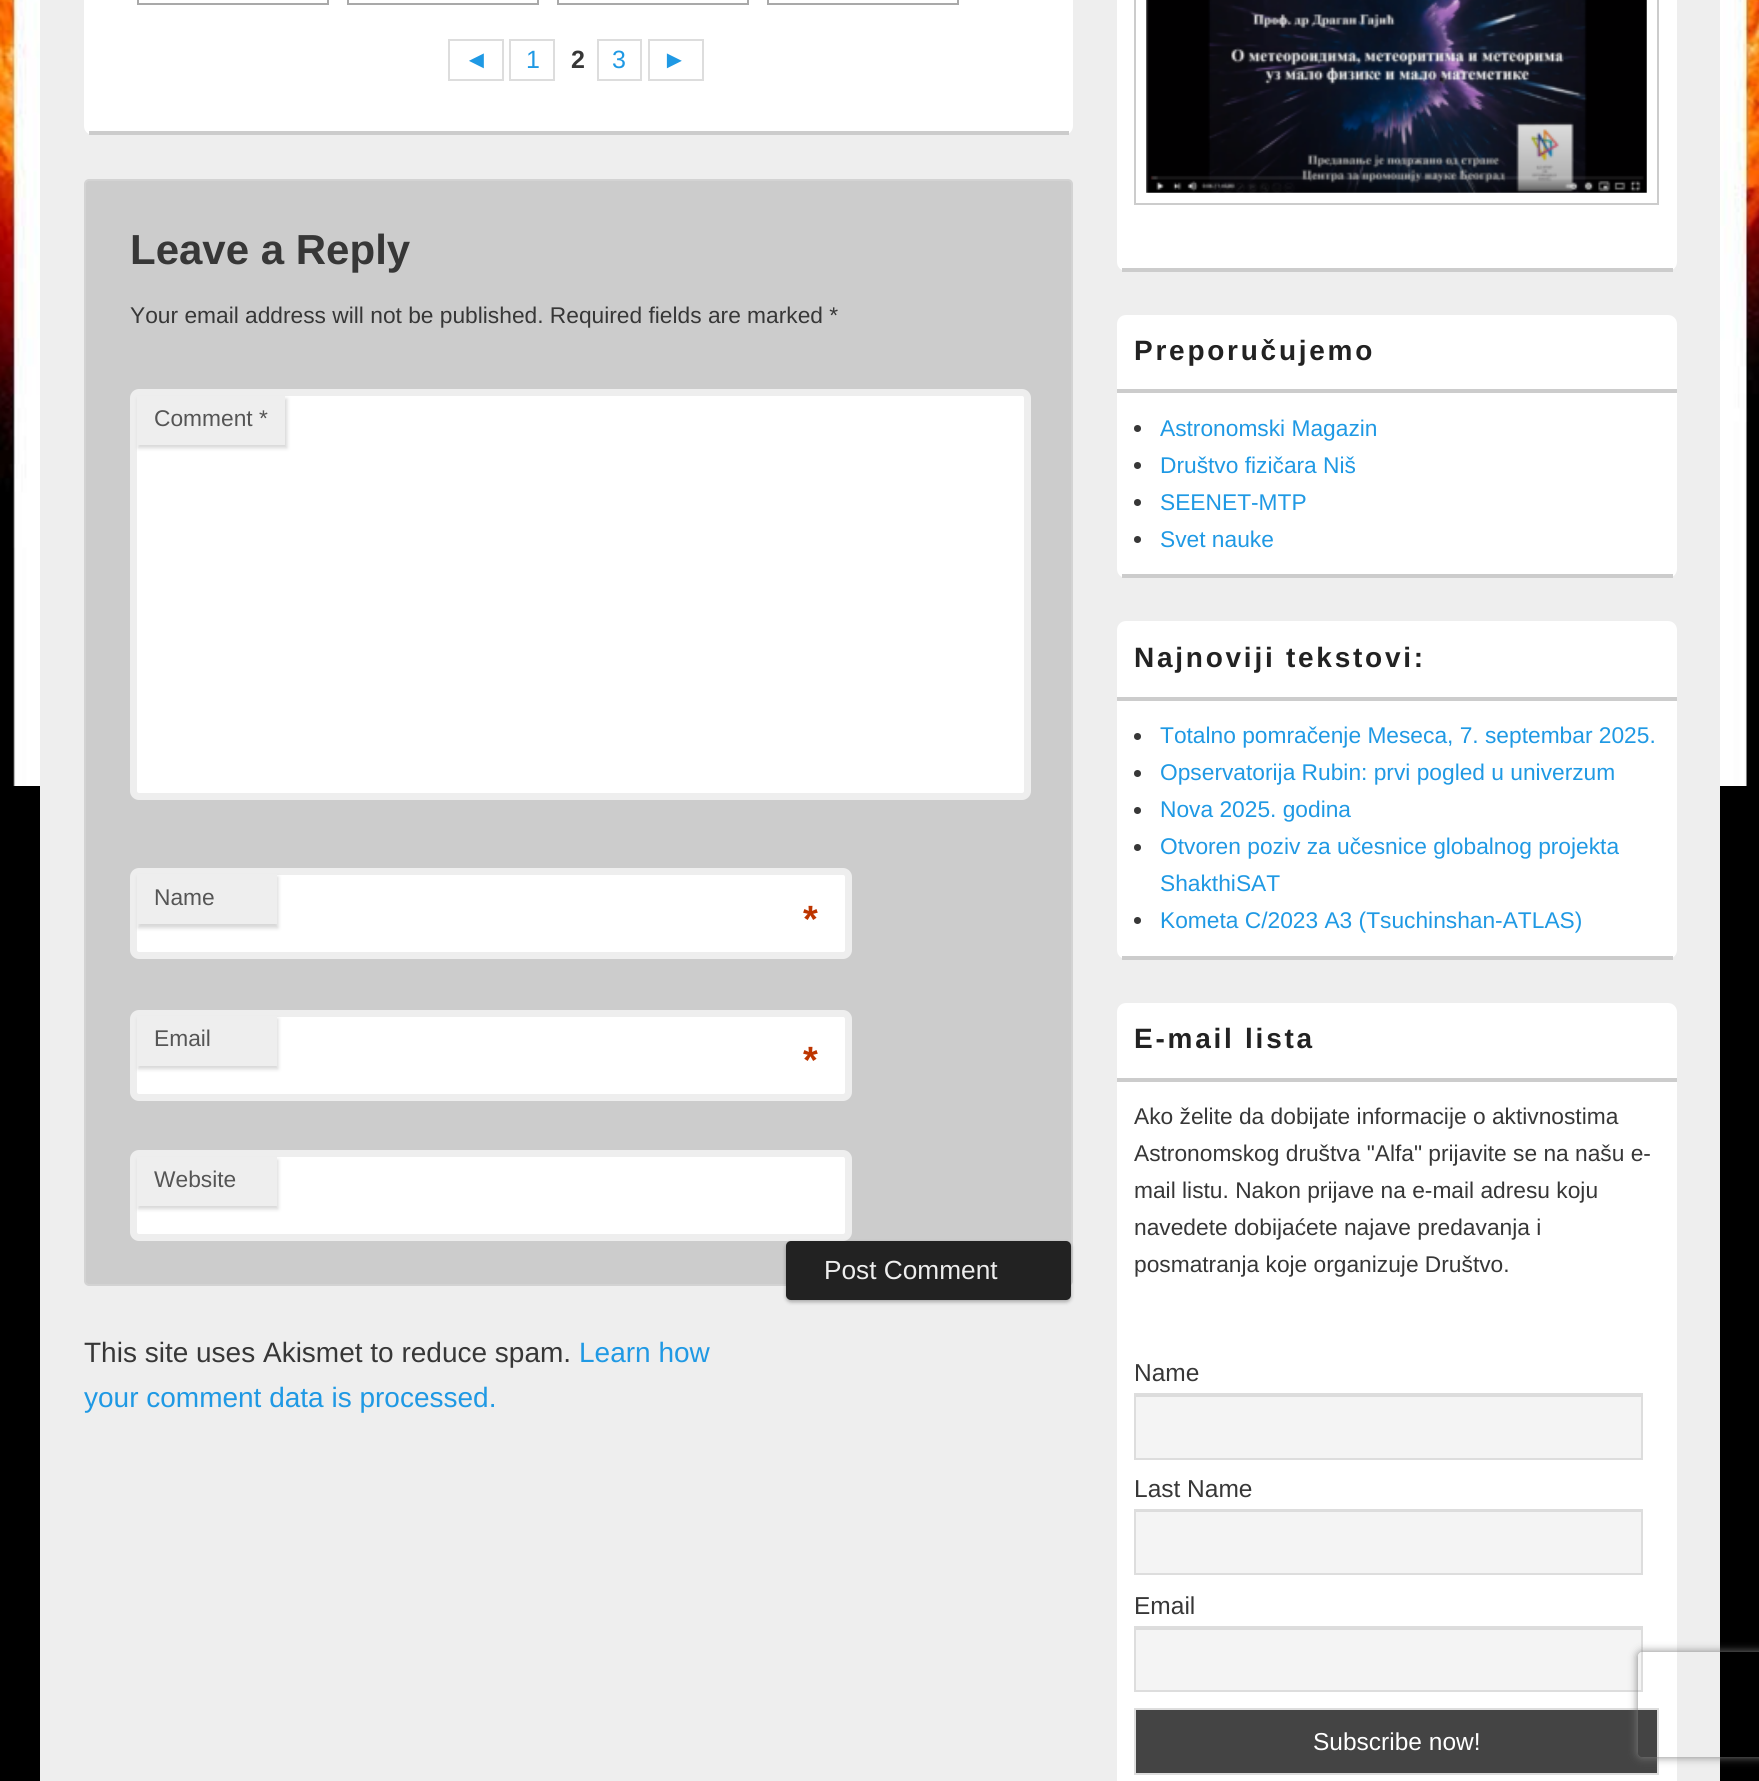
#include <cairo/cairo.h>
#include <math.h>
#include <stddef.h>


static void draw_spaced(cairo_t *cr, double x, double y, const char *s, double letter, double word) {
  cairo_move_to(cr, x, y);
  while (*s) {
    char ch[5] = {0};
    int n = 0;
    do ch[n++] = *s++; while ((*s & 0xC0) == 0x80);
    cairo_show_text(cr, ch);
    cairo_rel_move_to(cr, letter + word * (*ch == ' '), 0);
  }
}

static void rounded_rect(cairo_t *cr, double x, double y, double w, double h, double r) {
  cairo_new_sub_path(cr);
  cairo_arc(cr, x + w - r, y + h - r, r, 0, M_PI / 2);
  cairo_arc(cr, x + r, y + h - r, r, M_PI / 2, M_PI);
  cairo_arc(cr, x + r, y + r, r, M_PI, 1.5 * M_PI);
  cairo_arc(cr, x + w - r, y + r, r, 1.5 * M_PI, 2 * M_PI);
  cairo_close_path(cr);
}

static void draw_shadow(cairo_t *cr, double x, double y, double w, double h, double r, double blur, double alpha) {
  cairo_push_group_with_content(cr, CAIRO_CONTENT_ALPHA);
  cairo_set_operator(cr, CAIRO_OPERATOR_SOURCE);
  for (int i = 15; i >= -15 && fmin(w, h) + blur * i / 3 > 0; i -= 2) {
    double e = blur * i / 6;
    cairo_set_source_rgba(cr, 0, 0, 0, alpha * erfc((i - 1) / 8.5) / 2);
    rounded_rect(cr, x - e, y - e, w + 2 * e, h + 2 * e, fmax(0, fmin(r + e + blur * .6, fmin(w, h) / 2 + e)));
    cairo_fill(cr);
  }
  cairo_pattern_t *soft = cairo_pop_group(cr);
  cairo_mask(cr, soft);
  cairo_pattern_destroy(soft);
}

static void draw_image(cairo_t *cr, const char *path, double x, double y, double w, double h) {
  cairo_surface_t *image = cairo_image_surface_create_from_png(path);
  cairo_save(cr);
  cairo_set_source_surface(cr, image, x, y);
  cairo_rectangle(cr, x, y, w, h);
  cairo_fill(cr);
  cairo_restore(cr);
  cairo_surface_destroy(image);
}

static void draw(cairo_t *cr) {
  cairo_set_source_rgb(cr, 0, 0, 0);
  cairo_paint(cr);
  draw_image(cr, "images/1.png", 0, 0, 1759, 786);
  cairo_set_source_rgb(cr, 238 / 255.0, 238 / 255.0, 238 / 255.0);
  cairo_rectangle(cr, 40, 0, 1680, 1781);
  cairo_fill(cr);
  cairo_set_source_rgb(cr, 1, 1, 1);
  rounded_rect(cr, 84, -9, 989, 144, 9);
  cairo_fill(cr);
  cairo_set_source_rgb(cr, 204 / 255.0, 204 / 255.0, 204 / 255.0);
  cairo_rectangle(cr, 89, 131, 980, 4);
  cairo_fill(cr);
  cairo_rectangle(cr, 138, -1, 190, 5);
  cairo_set_source_rgb(cr, 169 / 255.0, 169 / 255.0, 169 / 255.0);
  cairo_stroke(cr);
  cairo_rectangle(cr, 348, -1, 190, 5);
  cairo_stroke(cr);
  cairo_rectangle(cr, 558, -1, 190, 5);
  cairo_stroke(cr);
  cairo_rectangle(cr, 768, -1, 190, 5);
  cairo_stroke(cr);
  cairo_rectangle(cr, 449, 40, 54, 40);
  cairo_set_source_rgb(cr, 221 / 255.0, 221 / 255.0, 221 / 255.0);
  cairo_stroke(cr);
  cairo_rectangle(cr, 510, 40, 44, 40);
  cairo_stroke(cr);
  cairo_rectangle(cr, 598, 40, 43, 40);
  cairo_stroke(cr);
  cairo_rectangle(cr, 649, 40, 54, 40);
  cairo_stroke(cr);
  cairo_set_source_rgb(cr, 204 / 255.0, 204 / 255.0, 204 / 255.0);
  rounded_rect(cr, 85, 180, 987, 1105, 4);
  cairo_fill_preserve(cr);
  cairo_set_source_rgb(cr, 211 / 255.0, 211 / 255.0, 211 / 255.0);
  cairo_stroke(cr);
  cairo_set_source_rgb(cr, 1, 1, 1);
  rounded_rect(cr, 133.5, 392.5, 894, 404, 5.5);
  cairo_fill_preserve(cr);
  cairo_set_source_rgb(cr, 238 / 255.0, 238 / 255.0, 238 / 255.0);
  cairo_set_line_width(cr, 7);
  cairo_stroke(cr);
  cairo_set_source_rgb(cr, 204 / 255.0, 204 / 255.0, 204 / 255.0);
  draw_shadow(cr, 138, 399, 149, 49, 0, 2, 0.8);
  cairo_set_source_rgb(cr, 238 / 255.0, 238 / 255.0, 238 / 255.0);
  cairo_rectangle(cr, 137, 396, 148, 49);
  cairo_fill(cr);
  cairo_set_source_rgb(cr, 1, 1, 1);
  rounded_rect(cr, 133.5, 871.5, 715, 84, 5.5);
  cairo_fill_preserve(cr);
  cairo_set_source_rgb(cr, 238 / 255.0, 238 / 255.0, 238 / 255.0);
  cairo_stroke(cr);
  cairo_set_source_rgb(cr, 204 / 255.0, 204 / 255.0, 204 / 255.0);
  draw_shadow(cr, 138, 877, 140, 51, 0, 2, 0.8);
  cairo_set_source_rgb(cr, 238 / 255.0, 238 / 255.0, 238 / 255.0);
  cairo_rectangle(cr, 137, 874, 140, 50);
  cairo_fill(cr);
  cairo_set_source_rgb(cr, 1, 1, 1);
  rounded_rect(cr, 133.5, 1013.5, 715, 84, 5.5);
  cairo_fill_preserve(cr);
  cairo_set_source_rgb(cr, 238 / 255.0, 238 / 255.0, 238 / 255.0);
  cairo_stroke(cr);
  cairo_set_source_rgb(cr, 204 / 255.0, 204 / 255.0, 204 / 255.0);
  draw_shadow(cr, 138, 1019, 140, 50, 0, 2, 0.8);
  cairo_set_source_rgb(cr, 238 / 255.0, 238 / 255.0, 238 / 255.0);
  cairo_rectangle(cr, 137, 1016, 140, 50);
  cairo_fill(cr);
  cairo_set_source_rgb(cr, 1, 1, 1);
  rounded_rect(cr, 133.5, 1153.5, 715, 84, 5.5);
  cairo_fill_preserve(cr);
  cairo_set_source_rgb(cr, 238 / 255.0, 238 / 255.0, 238 / 255.0);
  cairo_stroke(cr);
  cairo_set_source_rgb(cr, 204 / 255.0, 204 / 255.0, 204 / 255.0);
  draw_shadow(cr, 138, 1160, 140, 49, 0, 2, 0.8);
  cairo_set_source_rgb(cr, 238 / 255.0, 238 / 255.0, 238 / 255.0);
  cairo_rectangle(cr, 137, 1157, 140, 49);
  cairo_fill(cr);
  cairo_set_source_rgb(cr, 0, 0, 0);
  draw_shadow(cr, 786, 1243, 285, 59, 5, 2, 0.3);
  cairo_set_source_rgb(cr, 34 / 255.0, 34 / 255.0, 34 / 255.0);
  rounded_rect(cr, 786, 1241, 285, 59, 5);
  cairo_fill(cr);
  cairo_set_source_rgb(cr, 1, 1, 1);
  rounded_rect(cr, 1117, -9, 560, 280, 9);
  cairo_fill(cr);
  cairo_set_source_rgb(cr, 204 / 255.0, 204 / 255.0, 204 / 255.0);
  cairo_rectangle(cr, 1122, 268, 551, 4);
  cairo_fill(cr);
  cairo_rectangle(cr, 1135, -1, 523, 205);
  cairo_set_line_width(cr, 2);
  cairo_stroke(cr);
  draw_image(cr, "images/2.png", 1146, 0, 501, 193);
  cairo_set_source_rgb(cr, 1, 1, 1);
  rounded_rect(cr, 1117, 315, 560, 263, 9);
  cairo_fill(cr);
  cairo_set_source_rgb(cr, 204 / 255.0, 204 / 255.0, 204 / 255.0);
  cairo_rectangle(cr, 1122, 574, 551, 4);
  cairo_fill(cr);
  cairo_rectangle(cr, 1117, 389, 560, 4);
  cairo_fill(cr);
  cairo_set_source_rgb(cr, 55 / 255.0, 55 / 255.0, 55 / 255.0);
  cairo_arc(cr, 1137.5, 428.5, 3.5, 0, 2 * M_PI);
  cairo_fill(cr);
  cairo_arc(cr, 1137.5, 465.5, 3.5, 0, 2 * M_PI);
  cairo_fill(cr);
  cairo_arc(cr, 1137.5, 502.5, 3.5, 0, 2 * M_PI);
  cairo_fill(cr);
  cairo_arc(cr, 1137.5, 539.5, 3.5, 0, 2 * M_PI);
  cairo_fill(cr);
  cairo_set_source_rgb(cr, 1, 1, 1);
  rounded_rect(cr, 1117, 621, 560, 338, 9);
  cairo_fill(cr);
  cairo_set_source_rgb(cr, 204 / 255.0, 204 / 255.0, 204 / 255.0);
  cairo_rectangle(cr, 1122, 956, 551, 4);
  cairo_fill(cr);
  cairo_rectangle(cr, 1117, 697, 560, 4);
  cairo_fill(cr);
  cairo_set_source_rgb(cr, 55 / 255.0, 55 / 255.0, 55 / 255.0);
  cairo_arc(cr, 1137.5, 736.5, 3.5, 0, 2 * M_PI);
  cairo_fill(cr);
  cairo_arc(cr, 1137.5, 773.5, 3.5, 0, 2 * M_PI);
  cairo_fill(cr);
  cairo_arc(cr, 1137.5, 810.5, 3.5, 0, 2 * M_PI);
  cairo_fill(cr);
  cairo_arc(cr, 1137.5, 847.5, 3.5, 0, 2 * M_PI);
  cairo_fill(cr);
  cairo_arc(cr, 1137.5, 920.5, 3.5, 0, 2 * M_PI);
  cairo_fill(cr);
  cairo_set_source_rgb(cr, 1, 1, 1);
  rounded_rect(cr, 1117, 1003, 560, 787, 9);
  cairo_fill(cr);
  cairo_set_source_rgb(cr, 204 / 255.0, 204 / 255.0, 204 / 255.0);
  cairo_rectangle(cr, 1117, 1078, 560, 4);
  cairo_fill(cr);
  cairo_set_source_rgb(cr, 244 / 255.0, 244 / 255.0, 244 / 255.0);
  cairo_rectangle(cr, 1136, 1397, 505, 61);
  cairo_fill(cr);
  cairo_set_source_rgb(cr, 220 / 255.0, 220 / 255.0, 220 / 255.0);
  cairo_rectangle(cr, 1136, 1395, 506, 2);
  cairo_fill(cr);
  cairo_rectangle(cr, 1135, 1394, 507, 65);
  cairo_set_source_rgb(cr, 221 / 255.0, 221 / 255.0, 221 / 255.0);
  cairo_stroke(cr);
  cairo_set_source_rgb(cr, 244 / 255.0, 244 / 255.0, 244 / 255.0);
  cairo_rectangle(cr, 1136, 1512, 505, 61);
  cairo_fill(cr);
  cairo_set_source_rgb(cr, 220 / 255.0, 220 / 255.0, 220 / 255.0);
  cairo_rectangle(cr, 1136, 1511, 506, 1);
  cairo_fill(cr);
  cairo_rectangle(cr, 1135, 1510, 507, 64);
  cairo_set_source_rgb(cr, 221 / 255.0, 221 / 255.0, 221 / 255.0);
  cairo_stroke(cr);
  cairo_set_source_rgb(cr, 244 / 255.0, 244 / 255.0, 244 / 255.0);
  cairo_rectangle(cr, 1136, 1630, 505, 60);
  cairo_fill(cr);
  cairo_set_source_rgb(cr, 220 / 255.0, 220 / 255.0, 220 / 255.0);
  cairo_rectangle(cr, 1136, 1628, 506, 2);
  cairo_fill(cr);
  cairo_rectangle(cr, 1135, 1627, 507, 64);
  cairo_set_source_rgb(cr, 221 / 255.0, 221 / 255.0, 221 / 255.0);
  cairo_stroke(cr);
  cairo_set_source_rgb(cr, 68 / 255.0, 68 / 255.0, 68 / 255.0);
  cairo_rectangle(cr, 1135, 1709, 523, 65);
  cairo_fill_preserve(cr);
  cairo_set_source_rgb(cr, 221 / 255.0, 221 / 255.0, 221 / 255.0);
  cairo_stroke(cr);
  cairo_save(cr);
  cairo_set_fill_rule(cr, CAIRO_FILL_RULE_EVEN_ODD);
  cairo_new_path(cr);
  cairo_move_to(cr, 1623, 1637);
  cairo_line_to(cr, 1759, 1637);
  cairo_line_to(cr, 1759, 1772);
  cairo_line_to(cr, 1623, 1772);
  cairo_close_path(cr);
  cairo_move_to(cr, 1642, 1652);
  cairo_line_to(cr, 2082, 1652);
  cairo_curve_to(cr, 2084, 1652, 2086, 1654, 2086, 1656);
  cairo_line_to(cr, 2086, 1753);
  cairo_curve_to(cr, 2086, 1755, 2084, 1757, 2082, 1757);
  cairo_line_to(cr, 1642, 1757);
  cairo_curve_to(cr, 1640, 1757, 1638, 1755, 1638, 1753);
  cairo_line_to(cr, 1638, 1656);
  cairo_curve_to(cr, 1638, 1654, 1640, 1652, 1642, 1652);
  cairo_close_path(cr);
  cairo_clip(cr);
  cairo_set_source_rgb(cr, 128 / 255.0, 128 / 255.0, 128 / 255.0);
  draw_shadow(cr, 1638, 1652, 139, 105, 4, 4.5, 1);
  cairo_restore(cr);
  cairo_select_font_face(cr, "Liberation Sans", CAIRO_FONT_SLANT_NORMAL, CAIRO_FONT_WEIGHT_NORMAL);
  cairo_set_font_size(cr, 25);
  cairo_set_source_rgb(cr, 31 / 255.0, 153 / 255.0, 228 / 255.0);
  cairo_move_to(cr, 464, 68);
  cairo_show_text(cr, "◄");
  cairo_move_to(cr, 526, 68);
  cairo_show_text(cr, "1");
  cairo_select_font_face(cr, "Liberation Sans", CAIRO_FONT_SLANT_NORMAL, CAIRO_FONT_WEIGHT_BOLD);
  cairo_set_source_rgb(cr, 55 / 255.0, 55 / 255.0, 55 / 255.0);
  cairo_move_to(cr, 571, 68);
  cairo_show_text(cr, "2");
  cairo_select_font_face(cr, "Liberation Sans", CAIRO_FONT_SLANT_NORMAL, CAIRO_FONT_WEIGHT_NORMAL);
  cairo_set_source_rgb(cr, 31 / 255.0, 153 / 255.0, 228 / 255.0);
  cairo_move_to(cr, 612, 68);
  cairo_show_text(cr, "3");
  cairo_move_to(cr, 662, 68);
  cairo_show_text(cr, "►");
  cairo_select_font_face(cr, "Liberation Sans", CAIRO_FONT_SLANT_NORMAL, CAIRO_FONT_WEIGHT_BOLD);
  cairo_set_font_size(cr, 42);
  cairo_set_source_rgb(cr, 55 / 255.0, 55 / 255.0, 55 / 255.0);
  cairo_move_to(cr, 130, 264);
  cairo_show_text(cr, "Leave a Reply");
  cairo_select_font_face(cr, "Liberation Sans", CAIRO_FONT_SLANT_NORMAL, CAIRO_FONT_WEIGHT_NORMAL);
  cairo_set_font_size(cr, 22.75);
  cairo_move_to(cr, 130, 323);
  cairo_show_text(cr, "Your email address will not be published. Required fields are marked *");
  cairo_set_source_rgb(cr, 85 / 255.0, 85 / 255.0, 85 / 255.0);
  cairo_move_to(cr, 154, 426);
  cairo_show_text(cr, "Comment *");
  cairo_move_to(cr, 154, 905);
  cairo_show_text(cr, "Name");
  cairo_select_font_face(cr, "Liberation Sans", CAIRO_FONT_SLANT_NORMAL, CAIRO_FONT_WEIGHT_BOLD);
  cairo_set_font_size(cr, 38);
  cairo_set_source_rgb(cr, 189 / 255.0, 53 / 255.0, 0);
  cairo_move_to(cr, 803, 932);
  cairo_show_text(cr, "*");
  cairo_select_font_face(cr, "Liberation Sans", CAIRO_FONT_SLANT_NORMAL, CAIRO_FONT_WEIGHT_NORMAL);
  cairo_set_font_size(cr, 22.75);
  cairo_set_source_rgb(cr, 85 / 255.0, 85 / 255.0, 85 / 255.0);
  cairo_move_to(cr, 154, 1046);
  cairo_show_text(cr, "Email");
  cairo_select_font_face(cr, "Liberation Sans", CAIRO_FONT_SLANT_NORMAL, CAIRO_FONT_WEIGHT_BOLD);
  cairo_set_font_size(cr, 38);
  cairo_set_source_rgb(cr, 189 / 255.0, 53 / 255.0, 0);
  cairo_move_to(cr, 803, 1073);
  cairo_show_text(cr, "*");
  cairo_select_font_face(cr, "Liberation Sans", CAIRO_FONT_SLANT_NORMAL, CAIRO_FONT_WEIGHT_NORMAL);
  cairo_set_font_size(cr, 22.75);
  cairo_set_source_rgb(cr, 85 / 255.0, 85 / 255.0, 85 / 255.0);
  cairo_move_to(cr, 154, 1187);
  cairo_show_text(cr, "Website");
  cairo_set_font_size(cr, 26.25);
  cairo_set_source_rgb(cr, 238 / 255.0, 238 / 255.0, 238 / 255.0);
  cairo_move_to(cr, 824, 1279);
  cairo_show_text(cr, "Post Comment");
  cairo_set_font_size(cr, 28);
  cairo_set_source_rgb(cr, 55 / 255.0, 55 / 255.0, 55 / 255.0);
  cairo_move_to(cr, 84, 1362);
  cairo_show_text(cr, "This site uses Akismet to reduce spam.");
  cairo_set_source_rgb(cr, 31 / 255.0, 153 / 255.0, 228 / 255.0);
  cairo_move_to(cr, 579, 1362);
  cairo_show_text(cr, "Learn how");
  cairo_move_to(cr, 84, 1407);
  cairo_show_text(cr, "your comment data is processed.");
  cairo_select_font_face(cr, "Liberation Sans", CAIRO_FONT_SLANT_NORMAL, CAIRO_FONT_WEIGHT_BOLD);
  cairo_set_source_rgb(cr, 34 / 255.0, 34 / 255.0, 34 / 255.0);
  draw_spaced(cr, 1134, 360, "Preporučujemo", 2.75, 0);
  cairo_select_font_face(cr, "Liberation Sans", CAIRO_FONT_SLANT_NORMAL, CAIRO_FONT_WEIGHT_NORMAL);
  cairo_set_font_size(cr, 22.75);
  cairo_set_source_rgb(cr, 31 / 255.0, 153 / 255.0, 228 / 255.0);
  cairo_move_to(cr, 1160, 436);
  cairo_show_text(cr, "Astronomski Magazin");
  cairo_move_to(cr, 1160, 473);
  cairo_show_text(cr, "Društvo fizičara Niš");
  cairo_move_to(cr, 1160, 510);
  cairo_show_text(cr, "SEENET-MTP");
  cairo_move_to(cr, 1160, 547);
  cairo_show_text(cr, "Svet nauke");
  cairo_select_font_face(cr, "Liberation Sans", CAIRO_FONT_SLANT_NORMAL, CAIRO_FONT_WEIGHT_BOLD);
  cairo_set_font_size(cr, 28);
  cairo_set_source_rgb(cr, 34 / 255.0, 34 / 255.0, 34 / 255.0);
  draw_spaced(cr, 1134, 667, "Najnoviji tekstovi:", 2.75, 0);
  cairo_select_font_face(cr, "Liberation Sans", CAIRO_FONT_SLANT_NORMAL, CAIRO_FONT_WEIGHT_NORMAL);
  cairo_set_font_size(cr, 22.75);
  cairo_set_source_rgb(cr, 31 / 255.0, 153 / 255.0, 228 / 255.0);
  cairo_move_to(cr, 1160, 743);
  cairo_show_text(cr, "Totalno pomračenje Meseca, 7. septembar 2025.");
  cairo_move_to(cr, 1160, 780);
  cairo_show_text(cr, "Opservatorija Rubin: prvi pogled u univerzum");
  cairo_move_to(cr, 1160, 817);
  cairo_show_text(cr, "Nova 2025. godina");
  cairo_move_to(cr, 1160, 854);
  cairo_show_text(cr, "Otvoren poziv za učesnice globalnog projekta");
  cairo_move_to(cr, 1160, 891);
  cairo_show_text(cr, "ShakthiSAT");
  cairo_move_to(cr, 1160, 928);
  cairo_show_text(cr, "Kometa C/2023 A3 (Tsuchinshan-ATLAS)");
  cairo_select_font_face(cr, "Liberation Sans", CAIRO_FONT_SLANT_NORMAL, CAIRO_FONT_WEIGHT_BOLD);
  cairo_set_font_size(cr, 28);
  cairo_set_source_rgb(cr, 34 / 255.0, 34 / 255.0, 34 / 255.0);
  draw_spaced(cr, 1134, 1048, "E-mail lista", 2.75, 0);
  cairo_select_font_face(cr, "Liberation Sans", CAIRO_FONT_SLANT_NORMAL, CAIRO_FONT_WEIGHT_NORMAL);
  cairo_set_font_size(cr, 22.75);
  cairo_set_source_rgb(cr, 55 / 255.0, 55 / 255.0, 55 / 255.0);
  cairo_move_to(cr, 1134, 1124);
  cairo_show_text(cr, "Ako želite da dobijate informacije o aktivnostima");
  cairo_move_to(cr, 1134, 1161);
  cairo_show_text(cr, "Astronomskog društva \"Alfa\" prijavite se na našu e-");
  cairo_move_to(cr, 1134, 1198);
  cairo_show_text(cr, "mail listu. Nakon prijave na e-mail adresu koju");
  cairo_move_to(cr, 1134, 1235);
  cairo_show_text(cr, "navedete dobijaćete najave predavanja i");
  cairo_move_to(cr, 1134, 1272);
  cairo_show_text(cr, "posmatranja koje organizuje Društvo.");
  cairo_set_font_size(cr, 24.5);
  cairo_move_to(cr, 1134, 1381);
  cairo_show_text(cr, "Name");
  cairo_move_to(cr, 1134, 1497);
  cairo_show_text(cr, "Last Name");
  cairo_move_to(cr, 1134, 1614);
  cairo_show_text(cr, "Email");
  cairo_set_source_rgb(cr, 1, 1, 1);
  cairo_move_to(cr, 1313, 1750);
  cairo_show_text(cr, "Subscribe now!");
}

int main(void) {
  cairo_surface_t *surface = cairo_image_surface_create(CAIRO_FORMAT_RGB24, 1759, 1781);
  cairo_t *cr = cairo_create(surface);
  cairo_font_options_t *options = cairo_font_options_create();
  cairo_font_options_set_hint_metrics(options, CAIRO_HINT_METRICS_OFF);
  cairo_font_options_set_hint_style(options, CAIRO_HINT_STYLE_NONE);
  cairo_set_font_options(cr, options);
  cairo_set_miter_limit(cr, 4);
  draw(cr);
  cairo_surface_write_to_png(surface, "out.png");
  cairo_font_options_destroy(options);
  cairo_destroy(cr);
  cairo_surface_destroy(surface);
  return 0;
}
